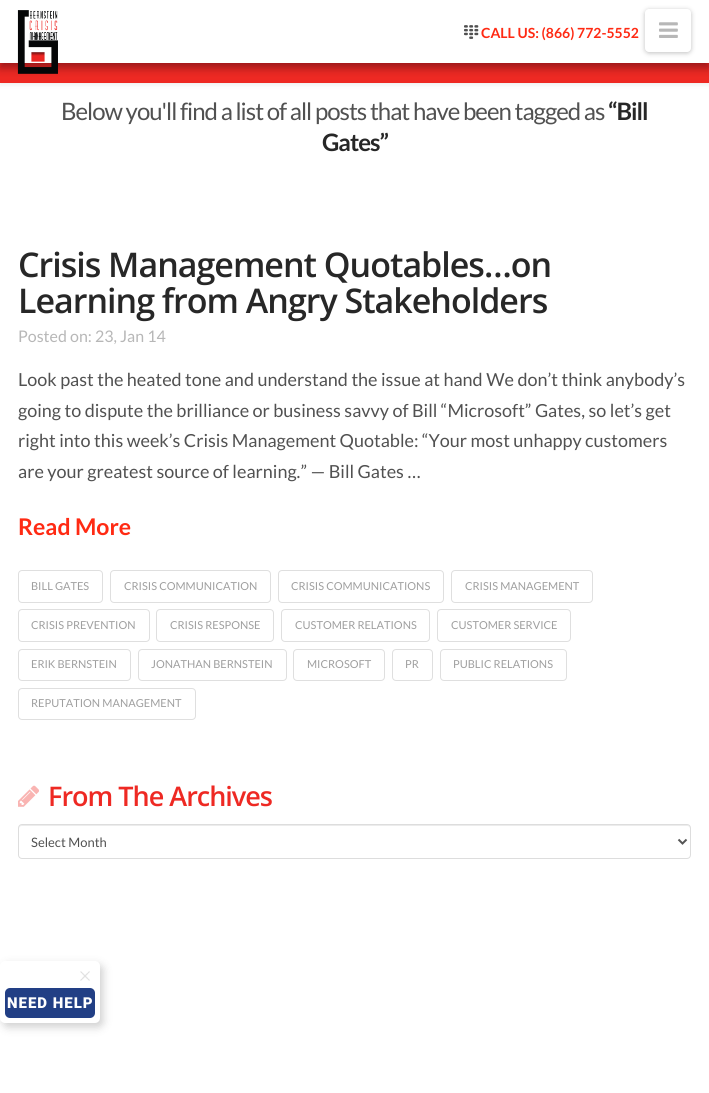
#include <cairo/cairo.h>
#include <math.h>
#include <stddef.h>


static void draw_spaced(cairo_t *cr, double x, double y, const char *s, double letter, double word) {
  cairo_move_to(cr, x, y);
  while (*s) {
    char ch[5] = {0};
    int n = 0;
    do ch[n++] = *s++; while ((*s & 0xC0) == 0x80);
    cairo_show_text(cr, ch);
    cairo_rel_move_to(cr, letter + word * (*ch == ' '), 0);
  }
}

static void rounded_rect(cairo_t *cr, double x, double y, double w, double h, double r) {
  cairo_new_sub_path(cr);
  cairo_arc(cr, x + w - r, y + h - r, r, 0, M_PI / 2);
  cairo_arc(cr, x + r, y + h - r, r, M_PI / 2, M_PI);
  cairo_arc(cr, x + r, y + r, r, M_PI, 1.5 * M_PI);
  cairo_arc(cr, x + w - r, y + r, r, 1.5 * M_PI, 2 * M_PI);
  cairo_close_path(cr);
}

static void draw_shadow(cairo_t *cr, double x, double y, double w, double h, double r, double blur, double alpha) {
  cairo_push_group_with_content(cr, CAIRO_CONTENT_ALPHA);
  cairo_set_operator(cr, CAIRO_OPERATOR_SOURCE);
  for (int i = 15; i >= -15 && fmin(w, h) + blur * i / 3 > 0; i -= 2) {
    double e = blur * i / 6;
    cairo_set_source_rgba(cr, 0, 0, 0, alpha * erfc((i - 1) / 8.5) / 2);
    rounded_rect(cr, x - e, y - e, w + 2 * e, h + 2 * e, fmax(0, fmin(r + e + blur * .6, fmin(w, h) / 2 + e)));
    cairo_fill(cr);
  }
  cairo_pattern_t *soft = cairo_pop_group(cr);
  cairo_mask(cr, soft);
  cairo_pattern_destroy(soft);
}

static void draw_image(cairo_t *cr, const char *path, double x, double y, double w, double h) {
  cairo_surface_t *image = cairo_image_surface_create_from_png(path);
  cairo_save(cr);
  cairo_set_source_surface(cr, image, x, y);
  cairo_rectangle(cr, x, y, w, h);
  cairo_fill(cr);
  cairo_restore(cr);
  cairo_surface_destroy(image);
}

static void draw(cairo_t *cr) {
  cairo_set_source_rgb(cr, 1, 1, 1);
  cairo_paint(cr);
  cairo_set_source_rgb(cr, 106 / 255.0, 106 / 255.0, 106 / 255.0);
  draw_shadow(cr, 0, 2, 709, 83, 0, 2, 0.11);
  cairo_set_source_rgb(cr, 1, 1, 1);
  cairo_rectangle(cr, 0, 0, 709, 63);
  cairo_fill(cr);
  cairo_set_source_rgb(cr, 238 / 255.0, 41 / 255.0, 35 / 255.0);
  cairo_rectangle(cr, 0, 63, 709, 20);
  cairo_fill(cr);
  cairo_save(cr);
  cairo_rectangle(cr, 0, 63, 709, 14);
  cairo_clip(cr);
  cairo_set_source_rgb(cr, 153 / 255.0, 24 / 255.0, 26 / 255.0);
  draw_shadow(cr, 0, 5, 709, 63, 0, 4.5, 1);
  cairo_restore(cr);
  draw_image(cr, "images/1.png", 17, 10, 41, 64);
  cairo_set_source_rgb(cr, 0, 0, 0);
  draw_shadow(cr, 645, 10, 46, 43, 4, 2.5, 0.25);
  cairo_set_source_rgb(cr, 1, 1, 1);
  rounded_rect(cr, 645, 9, 46, 43, 4);
  cairo_fill(cr);
  draw_image(cr, "images/2.png", 659, 22, 19, 16);
  draw_image(cr, "images/3.png", 464, 25, 15, 14);
  rounded_rect(cr, 18.5, 570.5, 84, 32, 3.5);
  cairo_set_source_rgb(cr, 223 / 255.0, 223 / 255.0, 223 / 255.0);
  cairo_set_line_width(cr, 1);
  cairo_stroke(cr);
  rounded_rect(cr, 110.5, 570.5, 160, 32, 3.5);
  cairo_stroke(cr);
  rounded_rect(cr, 278.5, 570.5, 165, 32, 3.5);
  cairo_stroke(cr);
  rounded_rect(cr, 451.5, 570.5, 141, 32, 3.5);
  cairo_stroke(cr);
  rounded_rect(cr, 18.5, 609.5, 131, 32, 3.5);
  cairo_stroke(cr);
  rounded_rect(cr, 156.5, 609.5, 117, 32, 3.5);
  cairo_stroke(cr);
  rounded_rect(cr, 281.5, 609.5, 148, 32, 3.5);
  cairo_stroke(cr);
  rounded_rect(cr, 437.5, 609.5, 133, 32, 3.5);
  cairo_stroke(cr);
  rounded_rect(cr, 18.5, 649.5, 112, 31, 3.5);
  cairo_stroke(cr);
  rounded_rect(cr, 138.5, 649.5, 148, 31, 3.5);
  cairo_stroke(cr);
  rounded_rect(cr, 293.5, 649.5, 91, 31, 3.5);
  cairo_stroke(cr);
  rounded_rect(cr, 392.5, 649.5, 40, 31, 3.5);
  cairo_stroke(cr);
  rounded_rect(cr, 440.5, 649.5, 126, 31, 3.5);
  cairo_stroke(cr);
  rounded_rect(cr, 18.5, 688.5, 177, 31, 3.5);
  cairo_stroke(cr);
  draw_image(cr, "images/4.png", 18, 785, 21, 22);
  cairo_set_source_rgb(cr, 236 / 255.0, 236 / 255.0, 236 / 255.0);
  cairo_new_path(cr);
  cairo_move_to(cr, 22, 826);
  cairo_line_to(cr, 687, 826);
  cairo_curve_to(cr, 689, 826, 690, 827, 690, 829);
  cairo_line_to(cr, 690, 828);
  cairo_curve_to(cr, 690, 826, 689, 825, 687, 825);
  cairo_line_to(cr, 22, 825);
  cairo_curve_to(cr, 20, 825, 19, 826, 19, 828);
  cairo_line_to(cr, 19, 829);
  cairo_curve_to(cr, 19, 827, 20, 826, 22, 826);
  cairo_close_path(cr);
  cairo_fill(cr);
  rounded_rect(cr, 18.5, 824.5, 672, 34, 3.5);
  cairo_set_source_rgb(cr, 221 / 255.0, 221 / 255.0, 221 / 255.0);
  cairo_stroke(cr);
  cairo_new_path(cr);
  cairo_move_to(cr, 678.5, 839.5);
  cairo_line_to(cr, 682.5, 843.5);
  cairo_line_to(cr, 686.5, 839.5);
  cairo_set_source_rgb(cr, 85 / 255.0, 85 / 255.0, 85 / 255.0);
  cairo_set_line_width(cr, 2);
  cairo_stroke(cr);
  cairo_set_source_rgb(cr, 0, 0, 0);
  draw_shadow(cr, 3, 965, 100, 62, 5, 4.5, 0.19);
  cairo_set_source_rgb(cr, 1, 1, 1);
  rounded_rect(cr, 0, 961, 100, 62, 5);
  cairo_fill(cr);
  draw_image(cr, "images/5.png", 80, 971, 10, 10);
  cairo_set_source_rgb(cr, 34 / 255.0, 63 / 255.0, 133 / 255.0);
  rounded_rect(cr, 5, 988, 90, 30, 5);
  cairo_fill(cr);
  cairo_select_font_face(cr, "Lato", CAIRO_FONT_SLANT_NORMAL, CAIRO_FONT_WEIGHT_BOLD);
  cairo_set_font_size(cr, 14);
  cairo_set_source_rgb(cr, 1, 42 / 255.0, 19 / 255.0);
  cairo_move_to(cr, 481, 38);
  cairo_show_text(cr, "CALL US: (866) 772-5552");
  cairo_select_font_face(cr, "Lato", CAIRO_FONT_SLANT_NORMAL, CAIRO_FONT_WEIGHT_NORMAL);
  cairo_set_font_size(cr, 24);
  cairo_set_source_rgb(cr, 81 / 255.0, 81 / 255.0, 81 / 255.0);
  draw_spaced(cr, 61, 120, "Below you'll find a list of all posts that have been tagged as", -1, 0);
  cairo_select_font_face(cr, "Lato", CAIRO_FONT_SLANT_NORMAL, CAIRO_FONT_WEIGHT_BOLD);
  cairo_set_source_rgb(cr, 39 / 255.0, 39 / 255.0, 39 / 255.0);
  draw_spaced(cr, 608, 120, "“Bill", -1, 0);
  draw_spaced(cr, 322, 151, "Gates”", -1, 0);
  cairo_select_font_face(cr, "Open Sans SemiBold", CAIRO_FONT_SLANT_NORMAL, CAIRO_FONT_WEIGHT_NORMAL);
  cairo_set_font_size(cr, 34);
  draw_spaced(cr, 18, 277, "Crisis Management Quotables…on", -1, 0);
  draw_spaced(cr, 18, 313, "Learning from Angry Stakeholders", -1, 0);
  cairo_select_font_face(cr, "Lato", CAIRO_FONT_SLANT_NORMAL, CAIRO_FONT_WEIGHT_NORMAL);
  cairo_set_font_size(cr, 16);
  cairo_set_source_rgb(cr, 183 / 255.0, 183 / 255.0, 183 / 255.0);
  cairo_move_to(cr, 18, 342);
  cairo_show_text(cr, "Posted on: 23, Jan 14");
  cairo_set_font_size(cr, 18);
  cairo_set_source_rgb(cr, 81 / 255.0, 81 / 255.0, 81 / 255.0);
  cairo_move_to(cr, 18, 386);
  cairo_show_text(cr, "Look past the heated tone and understand the issue at hand We don’t think anybody’s");
  cairo_move_to(cr, 18, 417);
  cairo_show_text(cr, "going to dispute the brilliance or business savvy of Bill “Microsoft” Gates, so let’s get");
  cairo_move_to(cr, 18, 447);
  cairo_show_text(cr, "right into this week’s Crisis Management Quotable: “Your most unhappy customers");
  cairo_move_to(cr, 18, 478);
  cairo_show_text(cr, "are your greatest source of learning.” — Bill Gates …");
  cairo_select_font_face(cr, "Lato", CAIRO_FONT_SLANT_NORMAL, CAIRO_FONT_WEIGHT_BOLD);
  cairo_set_font_size(cr, 23);
  cairo_set_source_rgb(cr, 1, 42 / 255.0, 19 / 255.0);
  cairo_move_to(cr, 18, 535);
  cairo_show_text(cr, "Read More");
  cairo_select_font_face(cr, "Lato", CAIRO_FONT_SLANT_NORMAL, CAIRO_FONT_WEIGHT_NORMAL);
  cairo_set_font_size(cr, 11);
  cairo_set_source_rgb(cr, 159 / 255.0, 159 / 255.0, 159 / 255.0);
  cairo_move_to(cr, 31, 590);
  cairo_show_text(cr, "BILL GATES");
  cairo_move_to(cr, 124, 590);
  cairo_show_text(cr, "CRISIS COMMUNICATION");
  cairo_move_to(cr, 291, 590);
  cairo_show_text(cr, "CRISIS COMMUNICATIONS");
  cairo_move_to(cr, 465, 590);
  cairo_show_text(cr, "CRISIS MANAGEMENT");
  cairo_move_to(cr, 31, 629);
  cairo_show_text(cr, "CRISIS PREVENTION");
  cairo_move_to(cr, 170, 629);
  cairo_show_text(cr, "CRISIS RESPONSE");
  cairo_move_to(cr, 295, 629);
  cairo_show_text(cr, "CUSTOMER RELATIONS");
  cairo_move_to(cr, 451, 629);
  cairo_show_text(cr, "CUSTOMER SERVICE");
  cairo_move_to(cr, 31, 668);
  cairo_show_text(cr, "ERIK BERNSTEIN");
  cairo_move_to(cr, 151, 668);
  cairo_show_text(cr, "JONATHAN BERNSTEIN");
  cairo_move_to(cr, 307, 668);
  cairo_show_text(cr, "MICROSOFT");
  cairo_move_to(cr, 405, 668);
  cairo_show_text(cr, "PR");
  cairo_move_to(cr, 453, 668);
  cairo_show_text(cr, "PUBLIC RELATIONS");
  cairo_move_to(cr, 31, 707);
  cairo_show_text(cr, "REPUTATION MANAGEMENT");
  cairo_select_font_face(cr, "Open Sans SemiBold", CAIRO_FONT_SLANT_NORMAL, CAIRO_FONT_WEIGHT_NORMAL);
  cairo_set_font_size(cr, 27);
  cairo_set_source_rgb(cr, 238 / 255.0, 41 / 255.0, 35 / 255.0);
  draw_spaced(cr, 48, 806, "From The Archives", -1, 0);
  cairo_select_font_face(cr, "Lato", CAIRO_FONT_SLANT_NORMAL, CAIRO_FONT_WEIGHT_NORMAL);
  cairo_set_font_size(cr, 13);
  cairo_set_source_rgb(cr, 81 / 255.0, 81 / 255.0, 81 / 255.0);
  cairo_move_to(cr, 31, 847);
  cairo_show_text(cr, "Select Month");
  cairo_select_font_face(cr, "Roboto Black", CAIRO_FONT_SLANT_NORMAL, CAIRO_FONT_WEIGHT_NORMAL);
  cairo_set_font_size(cr, 15);
  cairo_set_source_rgb(cr, 1, 1, 1);
  draw_spaced(cr, 7, 1008, "NEED HELP", 1, 0);
}

int main(void) {
  cairo_surface_t *surface = cairo_image_surface_create(CAIRO_FORMAT_RGB24, 709, 1093);
  cairo_t *cr = cairo_create(surface);
  cairo_font_options_t *options = cairo_font_options_create();
  cairo_font_options_set_hint_metrics(options, CAIRO_HINT_METRICS_OFF);
  cairo_font_options_set_hint_style(options, CAIRO_HINT_STYLE_NONE);
  cairo_set_font_options(cr, options);
  cairo_set_miter_limit(cr, 4);
  draw(cr);
  cairo_surface_write_to_png(surface, "out.png");
  cairo_font_options_destroy(options);
  cairo_destroy(cr);
  cairo_surface_destroy(surface);
  return 0;
}
